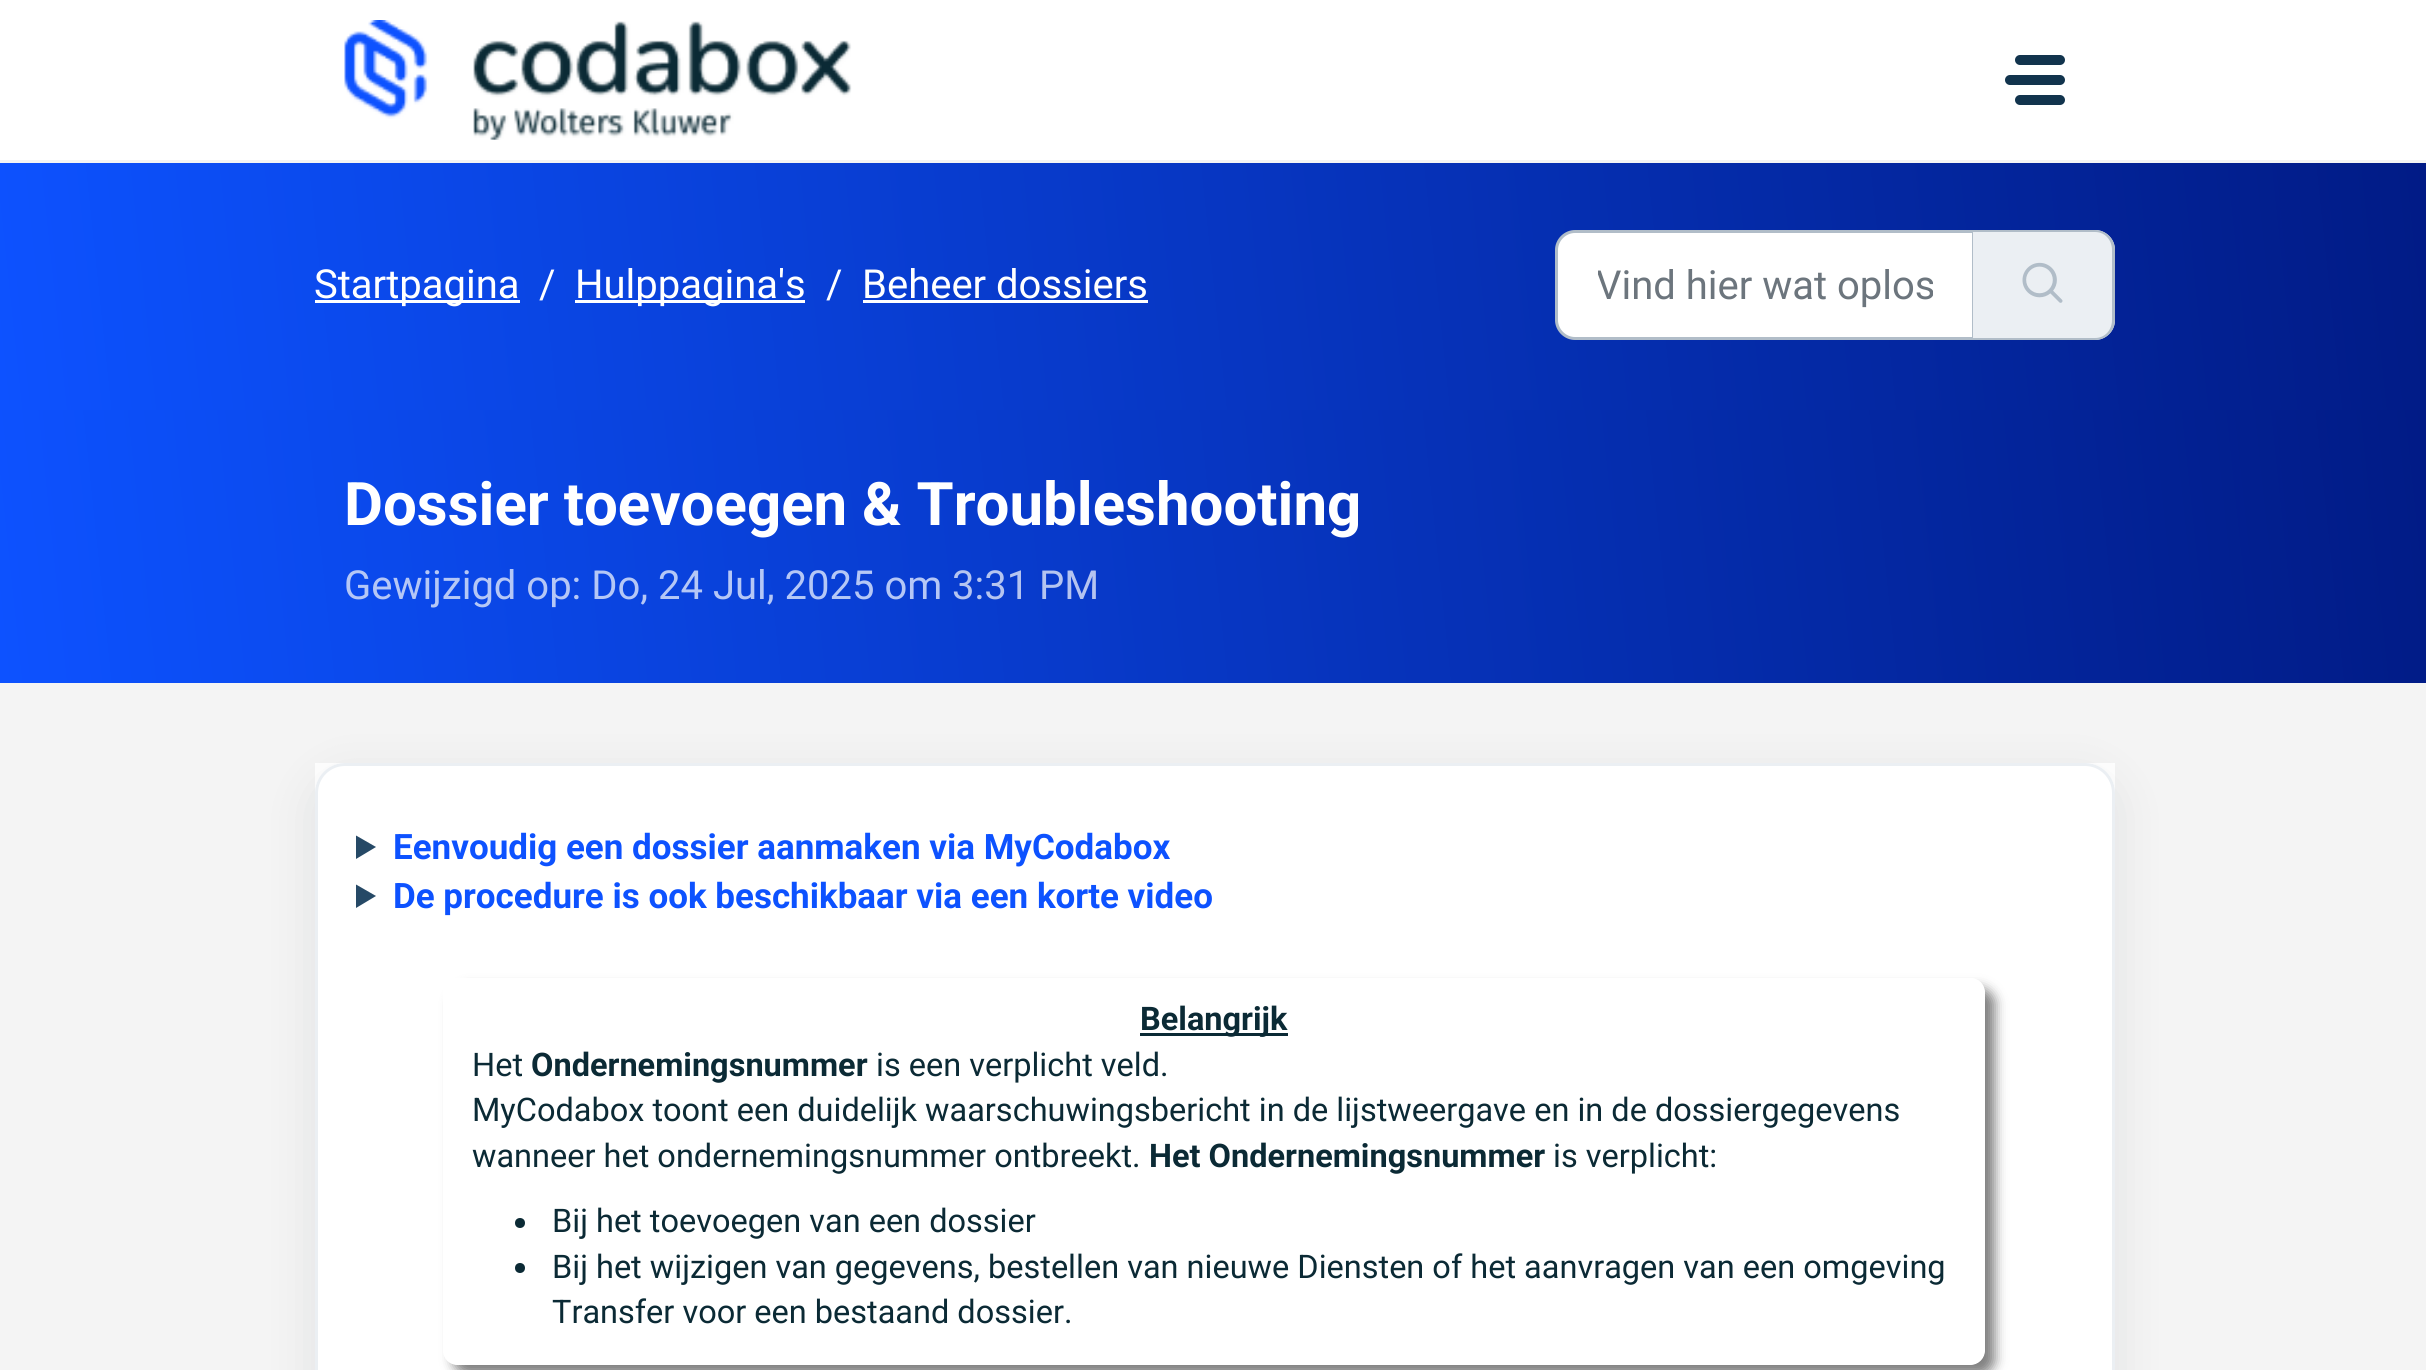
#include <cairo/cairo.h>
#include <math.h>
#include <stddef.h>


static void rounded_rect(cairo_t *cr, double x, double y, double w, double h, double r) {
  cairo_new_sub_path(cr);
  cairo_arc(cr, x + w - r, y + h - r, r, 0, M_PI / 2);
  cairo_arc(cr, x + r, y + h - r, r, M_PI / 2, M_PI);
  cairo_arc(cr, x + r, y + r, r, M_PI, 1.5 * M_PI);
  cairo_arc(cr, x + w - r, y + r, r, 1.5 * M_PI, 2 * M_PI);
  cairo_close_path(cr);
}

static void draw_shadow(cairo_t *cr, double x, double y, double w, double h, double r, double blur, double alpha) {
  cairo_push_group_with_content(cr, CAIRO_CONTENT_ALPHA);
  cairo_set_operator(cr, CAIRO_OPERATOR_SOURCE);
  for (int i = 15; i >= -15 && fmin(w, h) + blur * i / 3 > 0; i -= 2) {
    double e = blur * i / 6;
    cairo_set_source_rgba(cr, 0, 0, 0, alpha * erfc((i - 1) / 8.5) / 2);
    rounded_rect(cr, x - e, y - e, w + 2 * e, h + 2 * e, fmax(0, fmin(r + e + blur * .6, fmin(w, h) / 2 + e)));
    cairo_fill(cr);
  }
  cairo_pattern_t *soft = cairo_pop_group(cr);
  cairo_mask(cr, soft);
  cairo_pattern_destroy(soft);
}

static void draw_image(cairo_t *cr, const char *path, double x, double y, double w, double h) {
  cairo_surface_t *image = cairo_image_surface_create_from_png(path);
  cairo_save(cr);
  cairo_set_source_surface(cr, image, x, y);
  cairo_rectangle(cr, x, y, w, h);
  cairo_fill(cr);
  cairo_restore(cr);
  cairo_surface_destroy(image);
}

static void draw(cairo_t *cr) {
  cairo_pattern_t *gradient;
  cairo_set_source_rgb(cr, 244 / 255.0, 244 / 255.0, 244 / 255.0);
  cairo_paint(cr);
  cairo_set_source_rgb(cr, 1, 1, 1);
  cairo_rectangle(cr, 0, 0, 2426, 160);
  cairo_fill(cr);
  draw_image(cr, "images/1.png", 344, 20, 508, 120);
  cairo_set_source_rgb(cr, 18 / 255.0, 52 / 255.0, 77 / 255.0);
  rounded_rect(cr, 2015, 55, 50, 10, 5);
  cairo_fill(cr);
  rounded_rect(cr, 2005, 75, 60, 10, 5);
  cairo_fill(cr);
  rounded_rect(cr, 2015, 95, 50, 10, 5);
  cairo_fill(cr);
  gradient = cairo_pattern_create_linear(0.3, 413, 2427, 157);
  cairo_pattern_add_color_stop_rgba(gradient, 0, 13 / 255.0, 82 / 255.0, 1, 1);
  cairo_pattern_add_color_stop_rgba(gradient, 1, 1 / 255.0, 27 / 255.0, 134 / 255.0, 1);
  cairo_set_source(cr, gradient);
  cairo_pattern_destroy(gradient);
  cairo_rectangle(cr, 0, 163, 2426, 247);
  cairo_fill(cr);
  cairo_set_source_rgb(cr, 1, 1, 1);
  cairo_rectangle(cr, 315, 300, 205, 3);
  cairo_fill(cr);
  cairo_rectangle(cr, 575, 300, 230, 3);
  cairo_fill(cr);
  cairo_rectangle(cr, 863, 300, 285, 3);
  cairo_fill(cr);
  cairo_new_path(cr);
  cairo_move_to(cr, 1575, 231.5);
  cairo_line_to(cr, 1973.5, 231.5);
  cairo_line_to(cr, 1973.5, 338.5);
  cairo_line_to(cr, 1575, 338.5);
  cairo_curve_to(cr, 1565, 338.5, 1556.5, 330, 1556.5, 320);
  cairo_line_to(cr, 1556.5, 250);
  cairo_curve_to(cr, 1556.5, 240, 1565, 231.5, 1575, 231.5);
  cairo_close_path(cr);
  cairo_fill_preserve(cr);
  cairo_set_source_rgb(cr, 177 / 255.0, 189 / 255.0, 200 / 255.0);
  cairo_set_line_width(cr, 3);
  cairo_stroke(cr);
  cairo_set_source_rgb(cr, 235 / 255.0, 239 / 255.0, 243 / 255.0);
  cairo_new_path(cr);
  cairo_move_to(cr, 1973, 230);
  cairo_line_to(cr, 2095, 230);
  cairo_curve_to(cr, 2106, 230, 2115, 239, 2115, 250);
  cairo_line_to(cr, 2115, 320);
  cairo_curve_to(cr, 2115, 331, 2106, 340, 2095, 340);
  cairo_line_to(cr, 1973, 340);
  cairo_close_path(cr);
  cairo_fill(cr);
  cairo_set_source_rgb(cr, 177 / 255.0, 189 / 255.0, 200 / 255.0);
  cairo_set_fill_rule(cr, CAIRO_FILL_RULE_EVEN_ODD);
  cairo_new_path(cr);
  cairo_move_to(cr, 1972, 230);
  cairo_line_to(cr, 2095, 230);
  cairo_curve_to(cr, 2106, 230, 2115, 239, 2115, 250);
  cairo_line_to(cr, 2115, 320);
  cairo_curve_to(cr, 2115, 331, 2106, 340, 2095, 340);
  cairo_line_to(cr, 1972, 340);
  cairo_close_path(cr);
  cairo_move_to(cr, 1972, 232);
  cairo_line_to(cr, 2095, 232);
  cairo_curve_to(cr, 2105, 232, 2112, 240, 2112, 250);
  cairo_line_to(cr, 2112, 320);
  cairo_curve_to(cr, 2112, 330, 2105, 338, 2095, 338);
  cairo_line_to(cr, 1972, 338);
  cairo_close_path(cr);
  cairo_fill(cr);
  draw_image(cr, "images/2.png", 2022, 262, 41, 41);
  gradient = cairo_pattern_create_linear(-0.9, 674, 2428, 419);
  cairo_pattern_add_color_stop_rgba(gradient, 0, 13 / 255.0, 82 / 255.0, 1, 1);
  cairo_pattern_add_color_stop_rgba(gradient, 1, 1 / 255.0, 27 / 255.0, 134 / 255.0, 1);
  cairo_set_source(cr, gradient);
  cairo_pattern_destroy(gradient);
  cairo_rectangle(cr, 0, 410, 2426, 273);
  cairo_fill(cr);
  cairo_set_source_rgb(cr, 1, 1, 1);
  cairo_rectangle(cr, 315, 763, 1800, 607);
  cairo_fill(cr);
  cairo_save(cr);
  cairo_new_path(cr);
  cairo_move_to(cr, 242, 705);
  cairo_line_to(cr, 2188, 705);
  cairo_line_to(cr, 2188, 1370);
  cairo_line_to(cr, 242, 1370);
  cairo_close_path(cr);
  cairo_move_to(cr, 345, 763);
  cairo_line_to(cr, 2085, 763);
  cairo_curve_to(cr, 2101.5, 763, 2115, 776.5, 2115, 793);
  cairo_line_to(cr, 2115, 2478);
  cairo_curve_to(cr, 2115, 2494.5, 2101.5, 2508, 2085, 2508);
  cairo_line_to(cr, 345, 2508);
  cairo_curve_to(cr, 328.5, 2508, 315, 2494.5, 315, 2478);
  cairo_line_to(cr, 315, 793);
  cairo_curve_to(cr, 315, 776.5, 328.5, 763, 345, 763);
  cairo_close_path(cr);
  cairo_clip(cr);
  cairo_set_source_rgb(cr, 39 / 255.0, 49 / 255.0, 58 / 255.0);
  draw_shadow(cr, 315, 778, 1800, 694, 30, 24, 0.1);
  cairo_restore(cr);
  rounded_rect(cr, 316.5, 764.5, 1797, 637, 28.5);
  cairo_set_source_rgb(cr, 235 / 255.0, 239 / 255.0, 243 / 255.0);
  cairo_stroke(cr);
  cairo_set_source_rgb(cr, 38 / 255.0, 73 / 255.0, 102 / 255.0);
  cairo_set_fill_rule(cr, CAIRO_FILL_RULE_WINDING);
  cairo_new_path(cr);
  cairo_move_to(cr, 356, 835.5);
  cairo_line_to(cr, 376, 847);
  cairo_line_to(cr, 356, 859);
  cairo_close_path(cr);
  cairo_fill(cr);
  cairo_new_path(cr);
  cairo_move_to(cr, 356, 884.5);
  cairo_line_to(cr, 376, 896);
  cairo_line_to(cr, 356, 908);
  cairo_close_path(cr);
  cairo_fill(cr);
  cairo_save(cr);
  cairo_set_fill_rule(cr, CAIRO_FILL_RULE_EVEN_ODD);
  cairo_new_path(cr);
  cairo_move_to(cr, 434, 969);
  cairo_line_to(cr, 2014, 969);
  cairo_line_to(cr, 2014, 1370);
  cairo_line_to(cr, 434, 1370);
  cairo_close_path(cr);
  cairo_move_to(cr, 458, 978);
  cairo_line_to(cr, 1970, 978);
  cairo_curve_to(cr, 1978.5, 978, 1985, 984.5, 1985, 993);
  cairo_line_to(cr, 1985, 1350);
  cairo_curve_to(cr, 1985, 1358.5, 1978.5, 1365, 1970, 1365);
  cairo_line_to(cr, 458, 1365);
  cairo_curve_to(cr, 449.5, 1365, 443, 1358.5, 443, 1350);
  cairo_line_to(cr, 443, 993);
  cairo_curve_to(cr, 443, 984.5, 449.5, 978, 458, 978);
  cairo_close_path(cr);
  cairo_clip(cr);
  cairo_set_source_rgb(cr, 0, 0, 0);
  draw_shadow(cr, 453, 988, 1542, 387, 15, 6, 0.5);
  cairo_restore(cr);
  cairo_set_source_rgb(cr, 11 / 255.0, 42 / 255.0, 53 / 255.0);
  cairo_rectangle(cr, 1140, 1033, 148, 3);
  cairo_fill(cr);
  cairo_arc(cr, 520, 1223, 5, 0, 2 * M_PI);
  cairo_fill(cr);
  cairo_arc(cr, 520, 1268, 5, 0, 2 * M_PI);
  cairo_fill(cr);
  cairo_select_font_face(cr, "Roboto", CAIRO_FONT_SLANT_NORMAL, CAIRO_FONT_WEIGHT_NORMAL);
  cairo_set_font_size(cr, 40);
  cairo_set_source_rgb(cr, 1, 1, 1);
  cairo_move_to(cr, 314, 298);
  cairo_show_text(cr, "Startpagina");
  cairo_move_to(cr, 539, 298);
  cairo_show_text(cr, "/");
  cairo_move_to(cr, 575, 298);
  cairo_show_text(cr, "Hulppagina's");
  cairo_move_to(cr, 826, 298);
  cairo_show_text(cr, "/");
  cairo_move_to(cr, 862, 298);
  cairo_show_text(cr, "Beheer dossiers");
  cairo_save(cr);
  cairo_rectangle(cr, 1598, 263, 335, 47);
  cairo_clip(cr);
  cairo_set_source_rgb(cr, 108 / 255.0, 117 / 255.0, 125 / 255.0);
  cairo_move_to(cr, 1596, 299);
  cairo_show_text(cr, "Vind hier wat oplos");
  cairo_restore(cr);
  cairo_select_font_face(cr, "Roboto", CAIRO_FONT_SLANT_NORMAL, CAIRO_FONT_WEIGHT_BOLD);
  cairo_set_font_size(cr, 60);
  cairo_move_to(cr, 344, 525);
  cairo_show_text(cr, "Dossier toevoegen & Troubleshooting");
  cairo_select_font_face(cr, "Roboto", CAIRO_FONT_SLANT_NORMAL, CAIRO_FONT_WEIGHT_NORMAL);
  cairo_set_font_size(cr, 40);
  cairo_set_source_rgb(cr, 181 / 255.0, 199 / 255.0, 246 / 255.0);
  cairo_move_to(cr, 344, 599);
  cairo_show_text(cr, "Gewijzigd op: Do, 24 Jul, 2025 om");
  cairo_set_source_rgb(cr, 181 / 255.0, 196 / 255.0, 240 / 255.0);
  cairo_move_to(cr, 952, 599);
  cairo_show_text(cr, "3:31 PM");
  cairo_select_font_face(cr, "Roboto", CAIRO_FONT_SLANT_NORMAL, CAIRO_FONT_WEIGHT_BOLD);
  cairo_set_font_size(cr, 35);
  cairo_set_source_rgb(cr, 13 / 255.0, 82 / 255.0, 1);
  cairo_move_to(cr, 393, 859);
  cairo_show_text(cr, "Eenvoudig een dossier aanmaken via MyCodabox");
  cairo_move_to(cr, 393, 908);
  cairo_show_text(cr, "De procedure is ook beschikbaar via een korte video");
  cairo_set_font_size(cr, 32.5);
  cairo_set_source_rgb(cr, 11 / 255.0, 42 / 255.0, 53 / 255.0);
  cairo_move_to(cr, 1140, 1030);
  cairo_show_text(cr, "Belangrijk");
  cairo_select_font_face(cr, "Roboto", CAIRO_FONT_SLANT_NORMAL, CAIRO_FONT_WEIGHT_NORMAL);
  cairo_move_to(cr, 472, 1076);
  cairo_show_text(cr, "Het");
  cairo_select_font_face(cr, "Roboto", CAIRO_FONT_SLANT_NORMAL, CAIRO_FONT_WEIGHT_BOLD);
  cairo_move_to(cr, 531, 1076);
  cairo_show_text(cr, "Ondernemingsnummer");
  cairo_select_font_face(cr, "Roboto", CAIRO_FONT_SLANT_NORMAL, CAIRO_FONT_WEIGHT_NORMAL);
  cairo_move_to(cr, 876, 1076);
  cairo_show_text(cr, "is een verplicht veld.");
  cairo_move_to(cr, 472, 1121);
  cairo_show_text(cr, "MyCodabox toont een duidelijk waarschuwingsbericht in de lijstweergave en in de dossiergegevens");
  cairo_move_to(cr, 472, 1167);
  cairo_show_text(cr, "wanneer het ondernemingsnummer ontbreekt.");
  cairo_select_font_face(cr, "Roboto", CAIRO_FONT_SLANT_NORMAL, CAIRO_FONT_WEIGHT_BOLD);
  cairo_move_to(cr, 1149, 1167);
  cairo_show_text(cr, "Het Ondernemingsnummer");
  cairo_select_font_face(cr, "Roboto", CAIRO_FONT_SLANT_NORMAL, CAIRO_FONT_WEIGHT_NORMAL);
  cairo_move_to(cr, 1553, 1167);
  cairo_show_text(cr, "is verplicht:");
  cairo_move_to(cr, 552, 1232);
  cairo_show_text(cr, "Bij het toevoegen van een dossier");
  cairo_move_to(cr, 552, 1278);
  cairo_show_text(cr, "Bij het wijzigen van gegevens, bestellen van nieuwe Diensten of het aanvragen van een omgeving");
  cairo_move_to(cr, 552, 1323);
  cairo_show_text(cr, "Transfer voor een bestaand dossier.");
}

int main(void) {
  cairo_surface_t *surface = cairo_image_surface_create(CAIRO_FORMAT_RGB24, 2426, 1370);
  cairo_t *cr = cairo_create(surface);
  cairo_font_options_t *options = cairo_font_options_create();
  cairo_font_options_set_hint_metrics(options, CAIRO_HINT_METRICS_OFF);
  cairo_font_options_set_hint_style(options, CAIRO_HINT_STYLE_NONE);
  cairo_set_font_options(cr, options);
  cairo_set_miter_limit(cr, 4);
  draw(cr);
  cairo_surface_write_to_png(surface, "out.png");
  cairo_font_options_destroy(options);
  cairo_destroy(cr);
  cairo_surface_destroy(surface);
  return 0;
}
